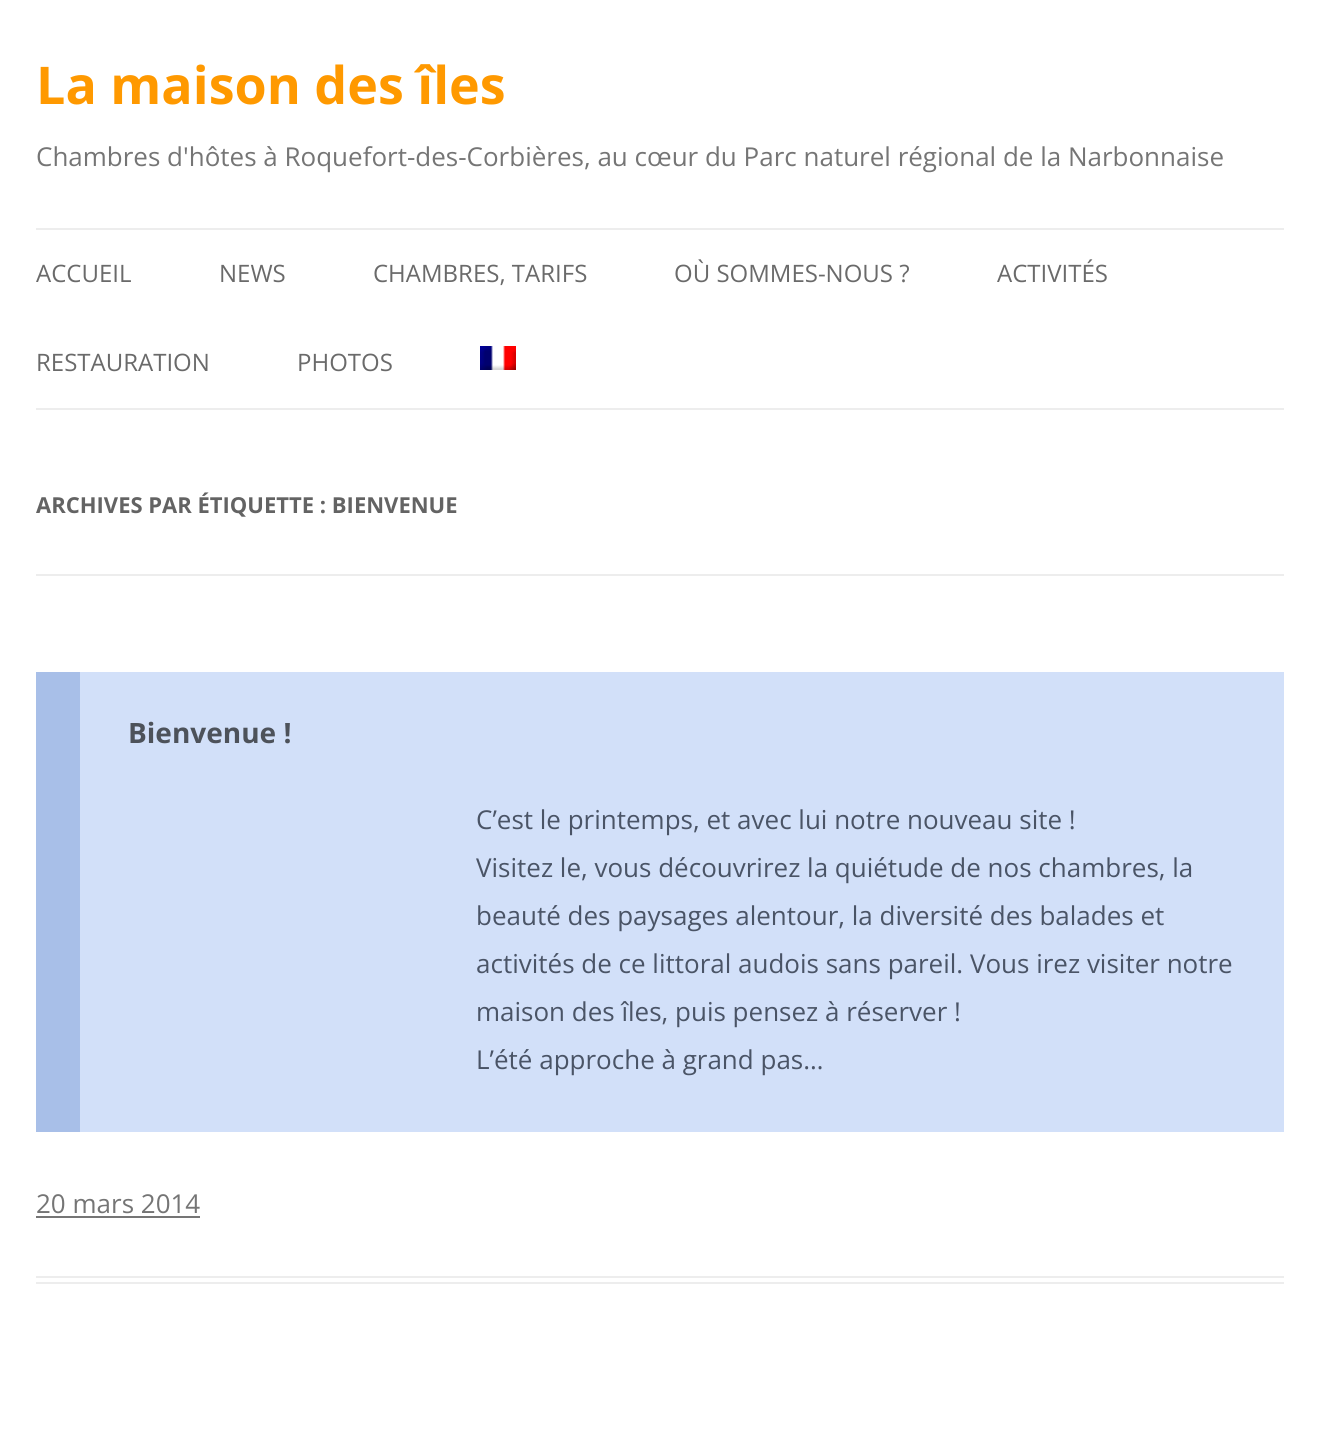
#include <cairo/cairo.h>
#include <math.h>
#include <stddef.h>


static void draw_image(cairo_t *cr, const char *path, double x, double y, double w, double h) {
  cairo_surface_t *image = cairo_image_surface_create_from_png(path);
  cairo_save(cr);
  cairo_set_source_surface(cr, image, x, y);
  cairo_rectangle(cr, x, y, w, h);
  cairo_fill(cr);
  cairo_restore(cr);
  cairo_surface_destroy(image);
}

static void draw(cairo_t *cr) {
  cairo_set_source_rgb(cr, 1, 1, 1);
  cairo_paint(cr);
  cairo_set_source_rgb(cr, 237 / 255.0, 237 / 255.0, 237 / 255.0);
  cairo_rectangle(cr, 36, 228, 1248, 2);
  cairo_fill(cr);
  cairo_rectangle(cr, 36, 408, 1248, 2);
  cairo_fill(cr);
  draw_image(cr, "images/1.png", 480, 346, 36, 24);
  cairo_rectangle(cr, 36, 574, 1248, 2);
  cairo_fill(cr);
  cairo_rectangle(cr, 36, 1276, 1248, 2);
  cairo_fill(cr);
  cairo_rectangle(cr, 36, 1282, 1248, 2);
  cairo_fill(cr);
  cairo_set_source_rgb(cr, 210 / 255.0, 224 / 255.0, 249 / 255.0);
  cairo_rectangle(cr, 80, 672, 1204, 460);
  cairo_fill(cr);
  cairo_set_source_rgb(cr, 168 / 255.0, 191 / 255.0, 232 / 255.0);
  cairo_rectangle(cr, 36, 672, 44, 460);
  cairo_fill(cr);
  cairo_set_source_rgb(cr, 117 / 255.0, 117 / 255.0, 117 / 255.0);
  cairo_rectangle(cr, 36, 1216, 164, 2);
  cairo_fill(cr);
  cairo_select_font_face(cr, "Open Sans", CAIRO_FONT_SLANT_NORMAL, CAIRO_FONT_WEIGHT_BOLD);
  cairo_set_font_size(cr, 52);
  cairo_set_source_rgb(cr, 1, 153 / 255.0, 0);
  cairo_move_to(cr, 36, 104);
  cairo_show_text(cr, "La maison des îles");
  cairo_select_font_face(cr, "Open Sans", CAIRO_FONT_SLANT_NORMAL, CAIRO_FONT_WEIGHT_NORMAL);
  cairo_set_font_size(cr, 26);
  cairo_set_source_rgb(cr, 117 / 255.0, 117 / 255.0, 117 / 255.0);
  cairo_move_to(cr, 36, 166);
  cairo_show_text(cr, "Chambres d'hôtes à Roquefort-des-Corbières, au cœur du Parc naturel régional de la Narbonnaise");
  cairo_set_font_size(cr, 24);
  cairo_set_source_rgb(cr, 106 / 255.0, 106 / 255.0, 106 / 255.0);
  cairo_move_to(cr, 36, 282);
  cairo_show_text(cr, "ACCUEIL");
  cairo_move_to(cr, 219, 282);
  cairo_show_text(cr, "NEWS");
  cairo_move_to(cr, 373, 282);
  cairo_show_text(cr, "CHAMBRES, TARIFS");
  cairo_move_to(cr, 674, 282);
  cairo_show_text(cr, "OÙ SOMMES-NOUS ?");
  cairo_move_to(cr, 997, 282);
  cairo_show_text(cr, "ACTIVITÉS");
  cairo_move_to(cr, 36, 371);
  cairo_show_text(cr, "RESTAURATION");
  cairo_move_to(cr, 297, 371);
  cairo_show_text(cr, "PHOTOS");
  cairo_select_font_face(cr, "Open Sans", CAIRO_FONT_SLANT_NORMAL, CAIRO_FONT_WEIGHT_BOLD);
  cairo_set_font_size(cr, 22);
  cairo_set_source_rgb(cr, 99 / 255.0, 99 / 255.0, 99 / 255.0);
  cairo_move_to(cr, 36, 513);
  cairo_show_text(cr, "ARCHIVES PAR ÉTIQUETTE : BIENVENUE");
  cairo_set_font_size(cr, 28);
  cairo_set_source_rgb(cr, 77 / 255.0, 82 / 255.0, 90 / 255.0);
  cairo_move_to(cr, 128, 743);
  cairo_show_text(cr, "Bienvenue !");
  cairo_select_font_face(cr, "Open Sans", CAIRO_FONT_SLANT_NORMAL, CAIRO_FONT_WEIGHT_NORMAL);
  cairo_set_font_size(cr, 26);
  cairo_set_source_rgb(cr, 74 / 255.0, 84 / 255.0, 102 / 255.0);
  cairo_move_to(cr, 476, 829);
  cairo_show_text(cr, "C’est le printemps, et avec lui notre nouveau site !");
  cairo_move_to(cr, 476, 877);
  cairo_show_text(cr, "Visitez le, vous découvrirez la quiétude de nos chambres, la");
  cairo_move_to(cr, 476, 925);
  cairo_show_text(cr, "beauté des paysages alentour, la diversité des balades et");
  cairo_move_to(cr, 476, 973);
  cairo_show_text(cr, "activités de ce littoral audois sans pareil. Vous irez visiter notre");
  cairo_move_to(cr, 476, 1021);
  cairo_show_text(cr, "maison des îles, puis pensez à réserver !");
  cairo_move_to(cr, 476, 1069);
  cairo_show_text(cr, "L’été approche à grand pas…");
  cairo_set_source_rgb(cr, 117 / 255.0, 117 / 255.0, 117 / 255.0);
  cairo_move_to(cr, 36, 1213);
  cairo_show_text(cr, "20 mars 2014");
}

int main(void) {
  cairo_surface_t *surface = cairo_image_surface_create(CAIRO_FORMAT_RGB24, 1320, 1449);
  cairo_t *cr = cairo_create(surface);
  cairo_font_options_t *options = cairo_font_options_create();
  cairo_font_options_set_hint_metrics(options, CAIRO_HINT_METRICS_OFF);
  cairo_font_options_set_hint_style(options, CAIRO_HINT_STYLE_NONE);
  cairo_set_font_options(cr, options);
  cairo_set_miter_limit(cr, 4);
  draw(cr);
  cairo_surface_write_to_png(surface, "out.png");
  cairo_font_options_destroy(options);
  cairo_destroy(cr);
  cairo_surface_destroy(surface);
  return 0;
}
